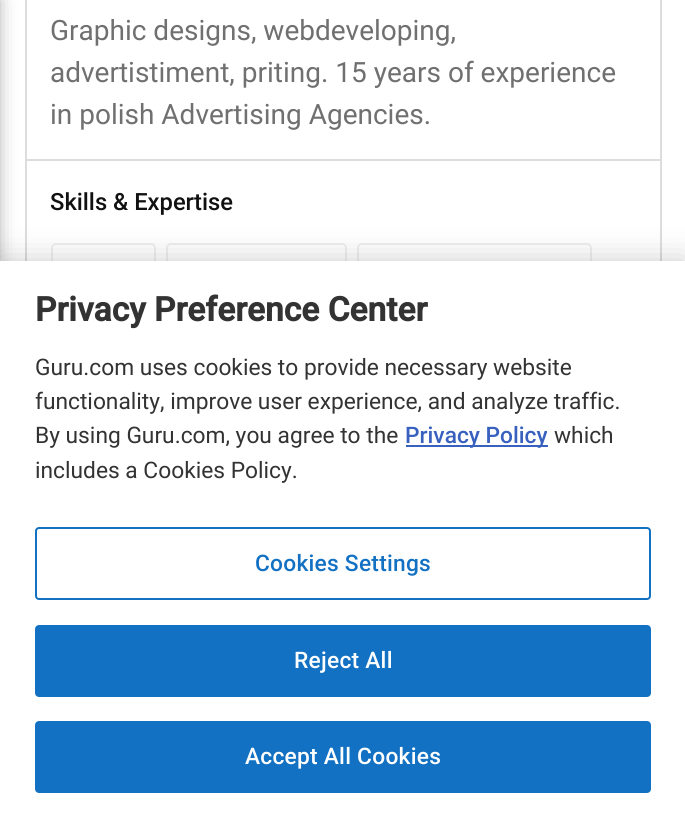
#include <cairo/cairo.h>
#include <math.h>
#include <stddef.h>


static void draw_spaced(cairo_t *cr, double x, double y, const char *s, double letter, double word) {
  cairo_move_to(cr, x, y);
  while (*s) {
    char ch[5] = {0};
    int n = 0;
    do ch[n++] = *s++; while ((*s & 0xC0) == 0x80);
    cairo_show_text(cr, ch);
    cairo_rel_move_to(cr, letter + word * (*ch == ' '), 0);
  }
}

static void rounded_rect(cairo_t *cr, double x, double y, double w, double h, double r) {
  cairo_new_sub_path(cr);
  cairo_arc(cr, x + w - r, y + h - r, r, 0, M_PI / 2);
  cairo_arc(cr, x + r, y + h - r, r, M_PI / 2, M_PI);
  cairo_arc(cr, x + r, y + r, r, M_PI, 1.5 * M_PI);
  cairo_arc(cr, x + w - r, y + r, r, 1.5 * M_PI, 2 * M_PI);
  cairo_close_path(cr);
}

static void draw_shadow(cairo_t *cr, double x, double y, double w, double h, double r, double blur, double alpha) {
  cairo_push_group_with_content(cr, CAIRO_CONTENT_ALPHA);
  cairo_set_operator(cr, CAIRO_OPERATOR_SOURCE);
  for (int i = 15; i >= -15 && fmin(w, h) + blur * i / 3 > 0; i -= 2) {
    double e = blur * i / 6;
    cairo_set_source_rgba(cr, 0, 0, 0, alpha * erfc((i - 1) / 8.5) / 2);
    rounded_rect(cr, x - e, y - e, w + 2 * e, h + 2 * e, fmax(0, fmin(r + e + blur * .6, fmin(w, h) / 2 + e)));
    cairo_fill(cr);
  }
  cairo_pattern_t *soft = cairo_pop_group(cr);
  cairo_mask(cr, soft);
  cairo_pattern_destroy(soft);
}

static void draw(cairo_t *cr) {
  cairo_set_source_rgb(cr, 1, 1, 1);
  cairo_paint(cr);
  cairo_rectangle(cr, 26, -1, 635, 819);
  cairo_set_source_rgb(cr, 221 / 255.0, 221 / 255.0, 221 / 255.0);
  cairo_stroke(cr);
  cairo_set_source_rgb(cr, 0, 0, 0);
  draw_shadow(cr, -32, 0, 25, 817, 0, 10.5, 0.6);
  cairo_set_source_rgb(cr, 221 / 255.0, 221 / 255.0, 221 / 255.0);
  cairo_rectangle(cr, 26, 159, 634, 2);
  cairo_fill(cr);
  rounded_rect(cr, 52, 244, 103, 46, 4);
  cairo_set_source_rgb(cr, 238 / 255.0, 238 / 255.0, 238 / 255.0);
  cairo_stroke(cr);
  rounded_rect(cr, 167, 244, 179, 46, 4);
  cairo_stroke(cr);
  rounded_rect(cr, 358, 244, 233, 46, 4);
  cairo_stroke(cr);
  cairo_set_source_rgb(cr, 0, 0, 0);
  draw_shadow(cr, 0, 261, 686, 556, 0, 16, 0.2);
  cairo_set_source_rgb(cr, 1, 1, 1);
  cairo_rectangle(cr, 0, 261, 685, 556);
  cairo_fill(cr);
  cairo_set_source_rgb(cr, 56 / 255.0, 96 / 255.0, 190 / 255.0);
  cairo_rectangle(cr, 406, 445, 142, 2);
  cairo_fill(cr);
  rounded_rect(cr, 36, 528, 614, 71, 3);
  cairo_set_source_rgb(cr, 19 / 255.0, 113 / 255.0, 195 / 255.0);
  cairo_stroke(cr);
  rounded_rect(cr, 36, 626, 614, 70, 3);
  cairo_fill_preserve(cr);
  cairo_stroke(cr);
  rounded_rect(cr, 36, 722, 614, 70, 3);
  cairo_fill_preserve(cr);
  cairo_stroke(cr);
  cairo_select_font_face(cr, "Roboto", CAIRO_FONT_SLANT_NORMAL, CAIRO_FONT_WEIGHT_NORMAL);
  cairo_set_font_size(cr, 28);
  cairo_set_source_rgb(cr, 112 / 255.0, 112 / 255.0, 112 / 255.0);
  cairo_move_to(cr, 50, 40);
  cairo_show_text(cr, "Graphic designs, webdeveloping,");
  cairo_move_to(cr, 50, 82);
  cairo_show_text(cr, "advertistiment, priting. 15 years of experience");
  cairo_move_to(cr, 50, 124);
  cairo_show_text(cr, "in polish Advertising Agencies.");
  cairo_select_font_face(cr, "Roboto Medium", CAIRO_FONT_SLANT_NORMAL, CAIRO_FONT_WEIGHT_NORMAL);
  cairo_set_font_size(cr, 23.75);
  cairo_set_source_rgb(cr, 17 / 255.0, 17 / 255.0, 17 / 255.0);
  cairo_move_to(cr, 50, 210);
  cairo_show_text(cr, "Skills & Expertise");
  cairo_select_font_face(cr, "Roboto", CAIRO_FONT_SLANT_NORMAL, CAIRO_FONT_WEIGHT_BOLD);
  cairo_set_font_size(cr, 33.6);
  cairo_set_source_rgb(cr, 51 / 255.0, 51 / 255.0, 51 / 255.0);
  cairo_move_to(cr, 35, 321);
  cairo_show_text(cr, "Privacy Preference Center");
  cairo_select_font_face(cr, "Roboto", CAIRO_FONT_SLANT_NORMAL, CAIRO_FONT_WEIGHT_NORMAL);
  cairo_set_font_size(cr, 22.75);
  cairo_move_to(cr, 35, 375);
  cairo_show_text(cr, "Guru.com uses cookies to provide necessary website");
  cairo_move_to(cr, 35, 409);
  cairo_show_text(cr, "functionality, improve user experience, and analyze traffic.");
  cairo_move_to(cr, 35, 443);
  cairo_show_text(cr, "By using Guru.com, you agree to the");
  cairo_select_font_face(cr, "Roboto Medium", CAIRO_FONT_SLANT_NORMAL, CAIRO_FONT_WEIGHT_NORMAL);
  cairo_set_source_rgb(cr, 56 / 255.0, 96 / 255.0, 190 / 255.0);
  cairo_move_to(cr, 405, 443);
  cairo_show_text(cr, "Privacy Policy");
  cairo_select_font_face(cr, "Roboto", CAIRO_FONT_SLANT_NORMAL, CAIRO_FONT_WEIGHT_NORMAL);
  cairo_set_source_rgb(cr, 51 / 255.0, 51 / 255.0, 51 / 255.0);
  cairo_move_to(cr, 554, 443);
  cairo_show_text(cr, "which");
  cairo_move_to(cr, 35, 478);
  cairo_show_text(cr, "includes a Cookies Policy.");
  cairo_select_font_face(cr, "Roboto Medium", CAIRO_FONT_SLANT_NORMAL, CAIRO_FONT_WEIGHT_NORMAL);
  cairo_set_source_rgb(cr, 19 / 255.0, 113 / 255.0, 195 / 255.0);
  draw_spaced(cr, 255, 571, "Cookies Settings", 0.25, 0);
  cairo_set_source_rgb(cr, 1, 1, 1);
  draw_spaced(cr, 294, 668, "Reject All", 0.25, 0);
  draw_spaced(cr, 245, 764, "Accept All Cookies", 0.25, 0);
}

int main(void) {
  cairo_surface_t *surface = cairo_image_surface_create(CAIRO_FORMAT_RGB24, 685, 817);
  cairo_t *cr = cairo_create(surface);
  cairo_font_options_t *options = cairo_font_options_create();
  cairo_font_options_set_hint_metrics(options, CAIRO_HINT_METRICS_OFF);
  cairo_font_options_set_hint_style(options, CAIRO_HINT_STYLE_NONE);
  cairo_set_font_options(cr, options);
  cairo_set_miter_limit(cr, 4);
  draw(cr);
  cairo_surface_write_to_png(surface, "out.png");
  cairo_font_options_destroy(options);
  cairo_destroy(cr);
  cairo_surface_destroy(surface);
  return 0;
}
